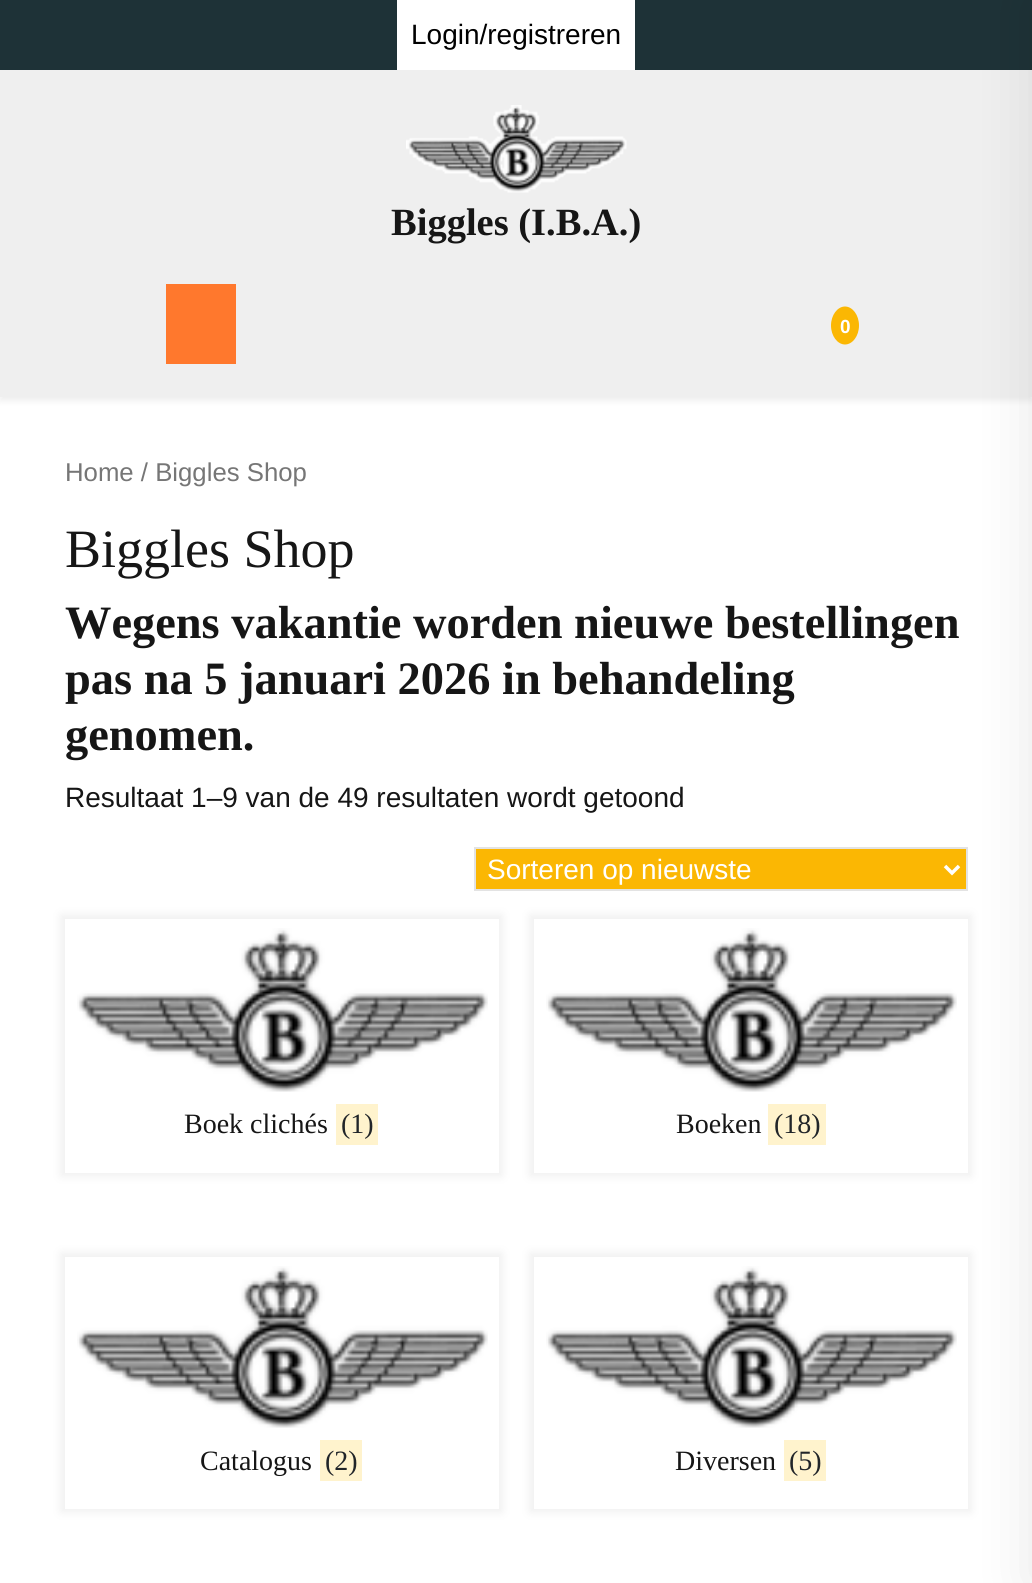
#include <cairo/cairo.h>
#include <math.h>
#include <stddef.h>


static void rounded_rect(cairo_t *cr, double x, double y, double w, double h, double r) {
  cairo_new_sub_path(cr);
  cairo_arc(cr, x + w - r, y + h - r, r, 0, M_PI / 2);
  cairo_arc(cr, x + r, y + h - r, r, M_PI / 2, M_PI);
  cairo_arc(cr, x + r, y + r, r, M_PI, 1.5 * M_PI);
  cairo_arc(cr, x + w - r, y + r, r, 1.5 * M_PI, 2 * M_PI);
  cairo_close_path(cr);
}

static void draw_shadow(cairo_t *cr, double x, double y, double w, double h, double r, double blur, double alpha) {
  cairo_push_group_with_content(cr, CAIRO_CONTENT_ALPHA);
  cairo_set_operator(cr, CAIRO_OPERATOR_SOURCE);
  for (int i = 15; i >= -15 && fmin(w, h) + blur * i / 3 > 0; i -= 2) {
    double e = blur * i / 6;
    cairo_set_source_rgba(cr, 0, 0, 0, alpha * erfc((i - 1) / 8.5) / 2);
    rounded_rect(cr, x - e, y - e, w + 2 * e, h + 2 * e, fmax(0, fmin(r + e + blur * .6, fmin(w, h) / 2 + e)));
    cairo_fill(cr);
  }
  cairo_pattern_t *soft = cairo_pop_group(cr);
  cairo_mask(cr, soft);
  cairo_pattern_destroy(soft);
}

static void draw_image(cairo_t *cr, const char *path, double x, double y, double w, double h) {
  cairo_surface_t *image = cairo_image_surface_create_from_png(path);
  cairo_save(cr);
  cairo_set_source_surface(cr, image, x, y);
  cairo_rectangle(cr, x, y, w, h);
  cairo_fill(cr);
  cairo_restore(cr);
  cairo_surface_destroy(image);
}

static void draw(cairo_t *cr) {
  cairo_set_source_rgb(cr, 1, 1, 1);
  cairo_paint(cr);
  cairo_set_source_rgb(cr, 0, 0, 0);
  draw_shadow(cr, 0, 4, 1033, 397, 0, 3.5, 0.07);
  cairo_set_source_rgb(cr, 30 / 255.0, 50 / 255.0, 55 / 255.0);
  cairo_rectangle(cr, 0, 0, 1032, 70);
  cairo_fill(cr);
  cairo_set_source_rgb(cr, 1, 1, 1);
  cairo_rectangle(cr, 397, 0, 238, 70);
  cairo_fill(cr);
  cairo_set_source_rgb(cr, 239 / 255.0, 239 / 255.0, 239 / 255.0);
  cairo_rectangle(cr, 0, 70, 1032, 327);
  cairo_fill(cr);
  draw_image(cr, "images/1.png", 406, 105, 221, 88);
  cairo_set_source_rgb(cr, 1, 120 / 255.0, 45 / 255.0);
  cairo_rectangle(cr, 166, 284, 70, 80);
  cairo_fill(cr);
  cairo_set_source_rgb(cr, 251 / 255.0, 183 / 255.0, 3 / 255.0);
  cairo_new_path(cr);
  cairo_move_to(cr, 845, 306.5);
  cairo_curve_to(cr, 852.5, 306.5, 859, 315, 859, 325.5);
  cairo_curve_to(cr, 859, 336, 852.5, 344.5, 845, 344.5);
  cairo_curve_to(cr, 837.5, 344.5, 831, 336, 831, 325.5);
  cairo_curve_to(cr, 831, 315, 837.5, 306.5, 845, 306.5);
  cairo_close_path(cr);
  cairo_fill(cr);
  cairo_rectangle(cr, 475, 848, 492, 42);
  cairo_fill_preserve(cr);
  cairo_set_source_rgb(cr, 227 / 255.0, 227 / 255.0, 227 / 255.0);
  cairo_stroke(cr);
  cairo_new_path(cr);
  cairo_move_to(cr, 945, 866);
  cairo_line_to(cr, 952, 873);
  cairo_line_to(cr, 959, 866);
  cairo_set_source_rgb(cr, 1, 1, 1);
  cairo_set_line_width(cr, 3.5);
  cairo_stroke(cr);
  cairo_save(cr);
  cairo_set_fill_rule(cr, CAIRO_FILL_RULE_EVEN_ODD);
  cairo_new_path(cr);
  cairo_move_to(cr, 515, 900);
  cairo_line_to(cr, 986, 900);
  cairo_line_to(cr, 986, 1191);
  cairo_line_to(cr, 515, 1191);
  cairo_close_path(cr);
  cairo_move_to(cr, 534, 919);
  cairo_line_to(cr, 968, 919);
  cairo_line_to(cr, 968, 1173);
  cairo_line_to(cr, 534, 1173);
  cairo_close_path(cr);
  cairo_clip(cr);
  cairo_set_source_rgb(cr, 239 / 255.0, 239 / 255.0, 239 / 255.0);
  draw_shadow(cr, 530, 915, 441, 261, 0, 4.5, 1);
  cairo_restore(cr);
  draw_image(cr, "images/2.png", 546, 928, 411, 164);
  cairo_save(cr);
  cairo_set_fill_rule(cr, CAIRO_FILL_RULE_EVEN_ODD);
  cairo_new_path(cr);
  cairo_move_to(cr, 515, 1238);
  cairo_line_to(cr, 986, 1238);
  cairo_line_to(cr, 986, 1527);
  cairo_line_to(cr, 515, 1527);
  cairo_close_path(cr);
  cairo_move_to(cr, 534, 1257);
  cairo_line_to(cr, 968, 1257);
  cairo_line_to(cr, 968, 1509);
  cairo_line_to(cr, 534, 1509);
  cairo_close_path(cr);
  cairo_clip(cr);
  cairo_set_source_rgb(cr, 239 / 255.0, 239 / 255.0, 239 / 255.0);
  draw_shadow(cr, 530, 1253, 441, 259, 0, 4.5, 1);
  cairo_restore(cr);
  draw_image(cr, "images/3.png", 546, 1266, 411, 162);
  cairo_set_source_rgb(cr, 0, 0, 0);
  draw_shadow(cr, 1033, 0, 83, 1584, 0, 28, 0.1);
  cairo_save(cr);
  cairo_set_fill_rule(cr, CAIRO_FILL_RULE_EVEN_ODD);
  cairo_new_path(cr);
  cairo_move_to(cr, 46, 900);
  cairo_line_to(cr, 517, 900);
  cairo_line_to(cr, 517, 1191);
  cairo_line_to(cr, 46, 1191);
  cairo_close_path(cr);
  cairo_move_to(cr, 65, 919);
  cairo_line_to(cr, 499, 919);
  cairo_line_to(cr, 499, 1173);
  cairo_line_to(cr, 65, 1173);
  cairo_close_path(cr);
  cairo_clip(cr);
  cairo_set_source_rgb(cr, 239 / 255.0, 239 / 255.0, 239 / 255.0);
  draw_shadow(cr, 61, 915, 441, 261, 0, 4.5, 1);
  cairo_restore(cr);
  draw_image(cr, "images/2.png", 77, 928, 411, 164);
  cairo_set_source_rgb(cr, 1, 243 / 255.0, 205 / 255.0);
  cairo_rectangle(cr, 336, 1104, 42, 41);
  cairo_fill(cr);
  cairo_rectangle(cr, 768, 1104, 58, 41);
  cairo_fill(cr);
  cairo_save(cr);
  cairo_set_fill_rule(cr, CAIRO_FILL_RULE_EVEN_ODD);
  cairo_new_path(cr);
  cairo_move_to(cr, 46, 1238);
  cairo_line_to(cr, 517, 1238);
  cairo_line_to(cr, 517, 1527);
  cairo_line_to(cr, 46, 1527);
  cairo_close_path(cr);
  cairo_move_to(cr, 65, 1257);
  cairo_line_to(cr, 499, 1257);
  cairo_line_to(cr, 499, 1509);
  cairo_line_to(cr, 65, 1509);
  cairo_close_path(cr);
  cairo_clip(cr);
  cairo_set_source_rgb(cr, 239 / 255.0, 239 / 255.0, 239 / 255.0);
  draw_shadow(cr, 61, 1253, 441, 259, 0, 4.5, 1);
  cairo_restore(cr);
  draw_image(cr, "images/3.png", 77, 1266, 411, 162);
  cairo_rectangle(cr, 320, 1440, 42, 41);
  cairo_fill(cr);
  cairo_rectangle(cr, 784, 1440, 42, 41);
  cairo_fill(cr);
  cairo_select_font_face(cr, "Liberation Sans", CAIRO_FONT_SLANT_NORMAL, CAIRO_FONT_WEIGHT_NORMAL);
  cairo_set_font_size(cr, 28);
  cairo_set_source_rgb(cr, 0, 0, 0);
  cairo_move_to(cr, 411, 44);
  cairo_show_text(cr, "Login/registreren");
  cairo_select_font_face(cr, "Liberation Serif", CAIRO_FONT_SLANT_NORMAL, CAIRO_FONT_WEIGHT_BOLD);
  cairo_set_font_size(cr, 38.5);
  cairo_set_source_rgb(cr, 22 / 255.0, 22 / 255.0, 22 / 255.0);
  cairo_move_to(cr, 391, 235);
  cairo_show_text(cr, "Biggles (I.B.A.)");
  cairo_select_font_face(cr, "Liberation Sans", CAIRO_FONT_SLANT_NORMAL, CAIRO_FONT_WEIGHT_BOLD);
  cairo_set_font_size(cr, 19);
  cairo_set_source_rgb(cr, 1, 1, 1);
  cairo_move_to(cr, 840, 333);
  cairo_show_text(cr, "0");
  cairo_select_font_face(cr, "Liberation Sans", CAIRO_FONT_SLANT_NORMAL, CAIRO_FONT_WEIGHT_NORMAL);
  cairo_set_font_size(cr, 25.75);
  cairo_set_source_rgb(cr, 118 / 255.0, 118 / 255.0, 118 / 255.0);
  cairo_move_to(cr, 65, 481);
  cairo_show_text(cr, "Home / Biggles Shop");
  cairo_select_font_face(cr, "Liberation Serif", CAIRO_FONT_SLANT_NORMAL, CAIRO_FONT_WEIGHT_NORMAL);
  cairo_set_font_size(cr, 54);
  cairo_set_source_rgb(cr, 22 / 255.0, 22 / 255.0, 22 / 255.0);
  cairo_move_to(cr, 65, 567);
  cairo_show_text(cr, "Biggles Shop");
  cairo_select_font_face(cr, "Liberation Serif", CAIRO_FONT_SLANT_NORMAL, CAIRO_FONT_WEIGHT_BOLD);
  cairo_set_font_size(cr, 46.4);
  cairo_move_to(cr, 65, 638);
  cairo_show_text(cr, "Wegens vakantie worden nieuwe bestellingen");
  cairo_move_to(cr, 65, 694);
  cairo_show_text(cr, "pas na 5 januari 2026 in behandeling");
  cairo_move_to(cr, 65, 750);
  cairo_show_text(cr, "genomen.");
  cairo_select_font_face(cr, "Liberation Sans", CAIRO_FONT_SLANT_NORMAL, CAIRO_FONT_WEIGHT_NORMAL);
  cairo_set_font_size(cr, 28);
  cairo_move_to(cr, 65, 807);
  cairo_show_text(cr, "Resultaat 1–9 van de 49 resultaten wordt getoond");
  cairo_set_source_rgb(cr, 1, 1, 1);
  cairo_move_to(cr, 487, 879);
  cairo_show_text(cr, "Sorteren op nieuwste");
  cairo_select_font_face(cr, "Liberation Serif", CAIRO_FONT_SLANT_NORMAL, CAIRO_FONT_WEIGHT_NORMAL);
  cairo_set_source_rgb(cr, 22 / 255.0, 22 / 255.0, 22 / 255.0);
  cairo_move_to(cr, 184, 1133);
  cairo_show_text(cr, "Boek clichés");
  cairo_set_source_rgb(cr, 33 / 255.0, 37 / 255.0, 41 / 255.0);
  cairo_move_to(cr, 341, 1133);
  cairo_show_text(cr, "(1)");
  cairo_set_source_rgb(cr, 22 / 255.0, 22 / 255.0, 22 / 255.0);
  cairo_move_to(cr, 676, 1133);
  cairo_show_text(cr, "Boeken");
  cairo_set_source_rgb(cr, 33 / 255.0, 37 / 255.0, 41 / 255.0);
  cairo_move_to(cr, 774, 1133);
  cairo_show_text(cr, "(18)");
  cairo_set_source_rgb(cr, 22 / 255.0, 22 / 255.0, 22 / 255.0);
  cairo_move_to(cr, 200, 1470);
  cairo_show_text(cr, "Catalogus");
  cairo_set_source_rgb(cr, 33 / 255.0, 37 / 255.0, 41 / 255.0);
  cairo_move_to(cr, 325, 1470);
  cairo_show_text(cr, "(2)");
  cairo_set_source_rgb(cr, 22 / 255.0, 22 / 255.0, 22 / 255.0);
  cairo_move_to(cr, 675, 1470);
  cairo_show_text(cr, "Diversen");
  cairo_set_source_rgb(cr, 33 / 255.0, 37 / 255.0, 41 / 255.0);
  cairo_move_to(cr, 789, 1470);
  cairo_show_text(cr, "(5)");
}

int main(void) {
  cairo_surface_t *surface = cairo_image_surface_create(CAIRO_FORMAT_RGB24, 1032, 1583);
  cairo_t *cr = cairo_create(surface);
  cairo_font_options_t *options = cairo_font_options_create();
  cairo_font_options_set_hint_metrics(options, CAIRO_HINT_METRICS_OFF);
  cairo_font_options_set_hint_style(options, CAIRO_HINT_STYLE_NONE);
  cairo_set_font_options(cr, options);
  cairo_set_miter_limit(cr, 4);
  draw(cr);
  cairo_surface_write_to_png(surface, "out.png");
  cairo_font_options_destroy(options);
  cairo_destroy(cr);
  cairo_surface_destroy(surface);
  return 0;
}
